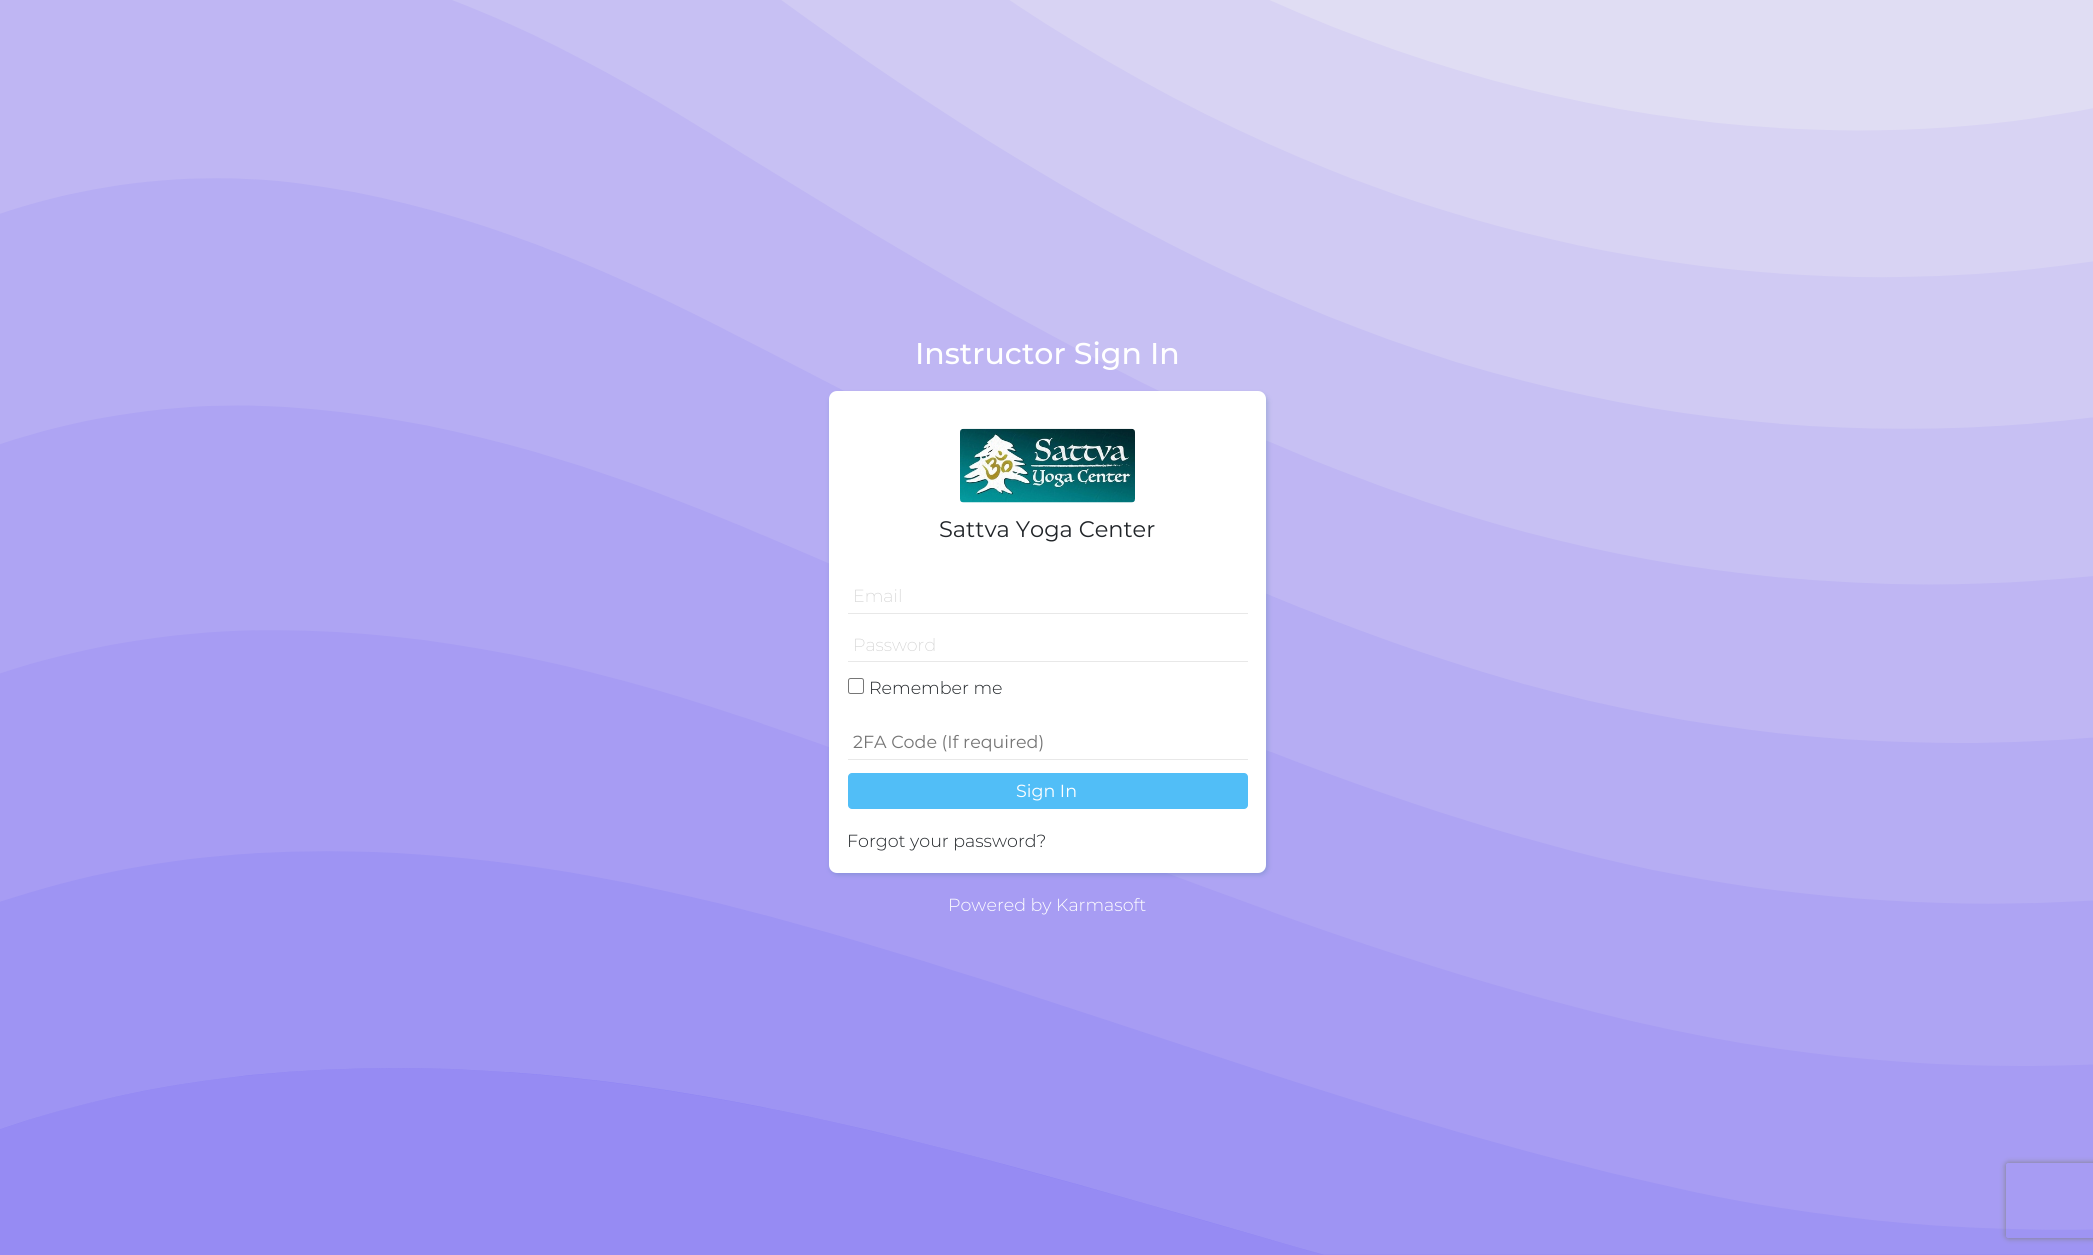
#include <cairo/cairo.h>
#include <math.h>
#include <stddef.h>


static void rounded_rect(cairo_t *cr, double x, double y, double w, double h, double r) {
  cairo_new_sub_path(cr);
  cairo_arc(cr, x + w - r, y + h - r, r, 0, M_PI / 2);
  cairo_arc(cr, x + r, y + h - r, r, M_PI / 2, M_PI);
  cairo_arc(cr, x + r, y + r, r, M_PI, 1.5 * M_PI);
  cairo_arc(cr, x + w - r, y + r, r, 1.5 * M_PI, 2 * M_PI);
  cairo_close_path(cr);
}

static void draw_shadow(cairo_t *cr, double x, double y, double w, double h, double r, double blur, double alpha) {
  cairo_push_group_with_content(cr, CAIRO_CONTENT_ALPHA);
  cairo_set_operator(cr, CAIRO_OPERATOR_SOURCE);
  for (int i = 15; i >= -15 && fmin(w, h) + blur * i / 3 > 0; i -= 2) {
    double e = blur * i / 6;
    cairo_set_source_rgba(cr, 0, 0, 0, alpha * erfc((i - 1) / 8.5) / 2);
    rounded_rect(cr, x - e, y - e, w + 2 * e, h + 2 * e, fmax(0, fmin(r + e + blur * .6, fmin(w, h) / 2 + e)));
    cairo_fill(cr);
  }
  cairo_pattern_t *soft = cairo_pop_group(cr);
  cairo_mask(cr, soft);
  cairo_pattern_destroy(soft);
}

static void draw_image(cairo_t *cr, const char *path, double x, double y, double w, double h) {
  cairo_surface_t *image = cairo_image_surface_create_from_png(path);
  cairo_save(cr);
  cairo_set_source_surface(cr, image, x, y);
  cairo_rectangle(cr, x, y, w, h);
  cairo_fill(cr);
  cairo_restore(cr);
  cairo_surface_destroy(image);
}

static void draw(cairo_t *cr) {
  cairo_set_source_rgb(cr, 141 / 255.0, 131 / 255.0, 243 / 255.0);
  cairo_paint(cr);
  draw_image(cr, "images/1.png", 0, 0, 2093, 1255);
  cairo_set_source_rgb(cr, 36 / 255.0, 104 / 255.0, 136 / 255.0);
  draw_shadow(cr, 830, 394, 438, 481, 8, 2.5, 0.23);
  cairo_set_source_rgb(cr, 1, 1, 1);
  rounded_rect(cr, 829, 391, 437, 482, 8);
  cairo_fill(cr);
  draw_image(cr, "images/2.png", 960, 428, 175, 75);
  cairo_set_source_rgb(cr, 232 / 255.0, 232 / 255.0, 232 / 255.0);
  cairo_rectangle(cr, 848, 613, 400, 1);
  cairo_fill(cr);
  cairo_rectangle(cr, 848, 661, 400, 1);
  cairo_fill(cr);
  rounded_rect(cr, 848.5, 678.5, 15, 15, 2);
  cairo_set_source_rgb(cr, 118 / 255.0, 118 / 255.0, 118 / 255.0);
  cairo_set_line_width(cr, 1);
  cairo_stroke(cr);
  cairo_set_source_rgb(cr, 232 / 255.0, 232 / 255.0, 232 / 255.0);
  cairo_rectangle(cr, 848, 759, 400, 1);
  cairo_fill(cr);
  cairo_set_source_rgb(cr, 81 / 255.0, 190 / 255.0, 247 / 255.0);
  rounded_rect(cr, 848, 773, 400, 36, 4);
  cairo_fill(cr);
  cairo_save(cr);
  cairo_set_fill_rule(cr, CAIRO_FILL_RULE_EVEN_ODD);
  cairo_new_path(cr);
  cairo_move_to(cr, 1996, 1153);
  cairo_line_to(cr, 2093, 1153);
  cairo_line_to(cr, 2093, 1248);
  cairo_line_to(cr, 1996, 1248);
  cairo_close_path(cr);
  cairo_move_to(cr, 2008.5, 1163);
  cairo_line_to(cr, 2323.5, 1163);
  cairo_curve_to(cr, 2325, 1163, 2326, 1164, 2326, 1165.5);
  cairo_line_to(cr, 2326, 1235.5);
  cairo_curve_to(cr, 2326, 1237, 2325, 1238, 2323.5, 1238);
  cairo_line_to(cr, 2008.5, 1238);
  cairo_curve_to(cr, 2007, 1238, 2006, 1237, 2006, 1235.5);
  cairo_line_to(cr, 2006, 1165.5);
  cairo_curve_to(cr, 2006, 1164, 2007, 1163, 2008.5, 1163);
  cairo_close_path(cr);
  cairo_clip(cr);
  cairo_set_source_rgb(cr, 128 / 255.0, 128 / 255.0, 128 / 255.0);
  draw_shadow(cr, 2006, 1163, 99, 75, 2.5, 3, 1);
  cairo_restore(cr);
  cairo_select_font_face(cr, "Montserrat Medium", CAIRO_FONT_SLANT_NORMAL, CAIRO_FONT_WEIGHT_NORMAL);
  cairo_set_font_size(cr, 30);
  cairo_set_source_rgb(cr, 1, 1, 1);
  cairo_move_to(cr, 915, 364);
  cairo_show_text(cr, "Instructor Sign In");
  cairo_select_font_face(cr, "Montserrat", CAIRO_FONT_SLANT_NORMAL, CAIRO_FONT_WEIGHT_NORMAL);
  cairo_set_font_size(cr, 22.5);
  cairo_set_source_rgb(cr, 33 / 255.0, 37 / 255.0, 41 / 255.0);
  cairo_move_to(cr, 939, 537);
  cairo_show_text(cr, "Sattva Yoga Center");
  cairo_select_font_face(cr, "Montserrat ExtraLight", CAIRO_FONT_SLANT_NORMAL, CAIRO_FONT_WEIGHT_NORMAL);
  cairo_set_font_size(cr, 17.5);
  cairo_set_source_rgb(cr, 206 / 255.0, 206 / 255.0, 206 / 255.0);
  cairo_move_to(cr, 853, 602);
  cairo_show_text(cr, "Email");
  cairo_move_to(cr, 853, 651);
  cairo_show_text(cr, "Password");
  cairo_select_font_face(cr, "Montserrat Light", CAIRO_FONT_SLANT_NORMAL, CAIRO_FONT_WEIGHT_NORMAL);
  cairo_set_source_rgb(cr, 33 / 255.0, 37 / 255.0, 41 / 255.0);
  cairo_move_to(cr, 869, 694);
  cairo_show_text(cr, "Remember me");
  cairo_select_font_face(cr, "Montserrat", CAIRO_FONT_SLANT_NORMAL, CAIRO_FONT_WEIGHT_NORMAL);
  cairo_set_source_rgb(cr, 117 / 255.0, 117 / 255.0, 117 / 255.0);
  cairo_move_to(cr, 853, 748);
  cairo_show_text(cr, "2FA Code (If required)");
  cairo_set_source_rgb(cr, 1, 1, 1);
  cairo_move_to(cr, 1016, 797);
  cairo_show_text(cr, "Sign In");
  cairo_select_font_face(cr, "Montserrat Light", CAIRO_FONT_SLANT_NORMAL, CAIRO_FONT_WEIGHT_NORMAL);
  cairo_set_source_rgb(cr, 33 / 255.0, 37 / 255.0, 41 / 255.0);
  cairo_move_to(cr, 847, 847);
  cairo_show_text(cr, "Forgot your password?");
  cairo_set_source_rgb(cr, 1, 1, 1);
  cairo_move_to(cr, 948, 911);
  cairo_show_text(cr, "Powered by Karmasoft");
}

int main(void) {
  cairo_surface_t *surface = cairo_image_surface_create(CAIRO_FORMAT_RGB24, 2093, 1255);
  cairo_t *cr = cairo_create(surface);
  cairo_font_options_t *options = cairo_font_options_create();
  cairo_font_options_set_hint_metrics(options, CAIRO_HINT_METRICS_OFF);
  cairo_font_options_set_hint_style(options, CAIRO_HINT_STYLE_NONE);
  cairo_set_font_options(cr, options);
  cairo_set_miter_limit(cr, 4);
  draw(cr);
  cairo_surface_write_to_png(surface, "out.png");
  cairo_font_options_destroy(options);
  cairo_destroy(cr);
  cairo_surface_destroy(surface);
  return 0;
}
